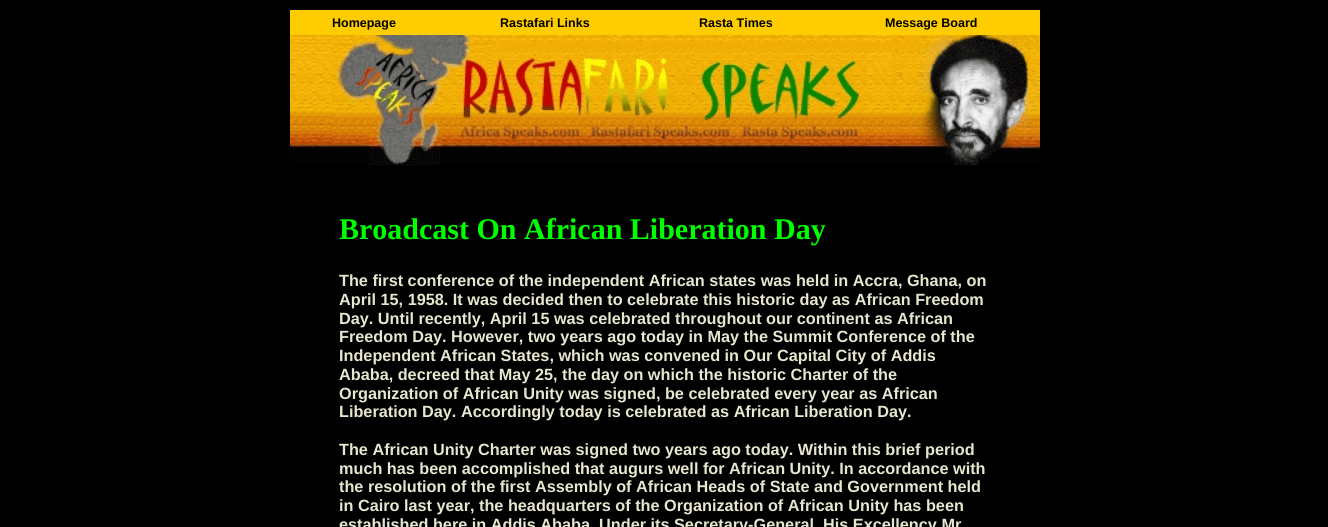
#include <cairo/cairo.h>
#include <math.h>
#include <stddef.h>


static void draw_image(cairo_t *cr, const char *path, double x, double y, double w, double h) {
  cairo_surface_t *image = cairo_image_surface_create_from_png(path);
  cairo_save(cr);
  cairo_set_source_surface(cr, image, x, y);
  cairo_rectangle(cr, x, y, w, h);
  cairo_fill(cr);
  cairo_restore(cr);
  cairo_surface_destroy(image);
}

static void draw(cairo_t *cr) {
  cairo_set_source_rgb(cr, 0, 0, 0);
  cairo_paint(cr);
  cairo_set_source_rgb(cr, 1, 204 / 255.0, 0);
  cairo_rectangle(cr, 290, 10, 750, 25);
  cairo_fill(cr);
  draw_image(cr, "images/1.png", 290, 35, 750, 130);
  cairo_select_font_face(cr, "Liberation Sans", CAIRO_FONT_SLANT_NORMAL, CAIRO_FONT_WEIGHT_BOLD);
  cairo_set_font_size(cr, 12.5);
  cairo_set_source_rgb(cr, 0, 0, 0);
  cairo_move_to(cr, 332, 27);
  cairo_show_text(cr, "Homepage");
  cairo_move_to(cr, 500, 27);
  cairo_show_text(cr, "Rastafari Links");
  cairo_move_to(cr, 699, 27);
  cairo_show_text(cr, "Rasta Times");
  cairo_move_to(cr, 885, 27);
  cairo_show_text(cr, "Message Board");
  cairo_select_font_face(cr, "Liberation Serif", CAIRO_FONT_SLANT_NORMAL, CAIRO_FONT_WEIGHT_BOLD);
  cairo_set_font_size(cr, 30);
  cairo_set_source_rgb(cr, 0, 1, 0);
  cairo_move_to(cr, 339, 239);
  cairo_show_text(cr, "Broadcast On African Liberation Day");
  cairo_select_font_face(cr, "Liberation Sans", CAIRO_FONT_SLANT_NORMAL, CAIRO_FONT_WEIGHT_BOLD);
  cairo_set_font_size(cr, 16.25);
  cairo_set_source_rgb(cr, 231 / 255.0, 231 / 255.0, 207 / 255.0);
  cairo_move_to(cr, 339, 286);
  cairo_show_text(cr, "The first conference of the independent African states was held in Accra, Ghana, on");
  cairo_move_to(cr, 339, 305);
  cairo_show_text(cr, "April 15, 1958. It was decided then to celebrate this historic day as African Freedom");
  cairo_move_to(cr, 339, 324);
  cairo_show_text(cr, "Day. Until recently, April 15 was celebrated throughout our continent as African");
  cairo_move_to(cr, 339, 342);
  cairo_show_text(cr, "Freedom Day. However, two years ago today in May the Summit Conference of the");
  cairo_move_to(cr, 339, 361);
  cairo_show_text(cr, "Independent African States, which was convened in Our Capital City of Addis");
  cairo_move_to(cr, 339, 380);
  cairo_show_text(cr, "Ababa, decreed that May 25, the day on which the historic Charter of the");
  cairo_move_to(cr, 339, 399);
  cairo_show_text(cr, "Organization of African Unity was signed, be celebrated every year as African");
  cairo_move_to(cr, 339, 417);
  cairo_show_text(cr, "Liberation Day. Accordingly today is celebrated as African Liberation Day.");
  cairo_move_to(cr, 339, 455);
  cairo_show_text(cr, "The African Unity Charter was signed two years ago today. Within this brief period");
  cairo_move_to(cr, 339, 474);
  cairo_show_text(cr, "much has been accomplished that augurs well for African Unity. In accordance with");
  cairo_move_to(cr, 339, 492);
  cairo_show_text(cr, "the resolution of the first Assembly of African Heads of State and Government held");
  cairo_move_to(cr, 339, 511);
  cairo_show_text(cr, "in Cairo last year, the headquarters of the Organization of African Unity has been");
  cairo_move_to(cr, 339, 530);
  cairo_show_text(cr, "established here in Addis Ababa. Under its Secretary-General, His Excellency Mr");
}

int main(void) {
  cairo_surface_t *surface = cairo_image_surface_create(CAIRO_FORMAT_RGB24, 1328, 527);
  cairo_t *cr = cairo_create(surface);
  cairo_font_options_t *options = cairo_font_options_create();
  cairo_font_options_set_hint_metrics(options, CAIRO_HINT_METRICS_OFF);
  cairo_font_options_set_hint_style(options, CAIRO_HINT_STYLE_NONE);
  cairo_set_font_options(cr, options);
  cairo_set_miter_limit(cr, 4);
  draw(cr);
  cairo_surface_write_to_png(surface, "out.png");
  cairo_font_options_destroy(options);
  cairo_destroy(cr);
  cairo_surface_destroy(surface);
  return 0;
}
